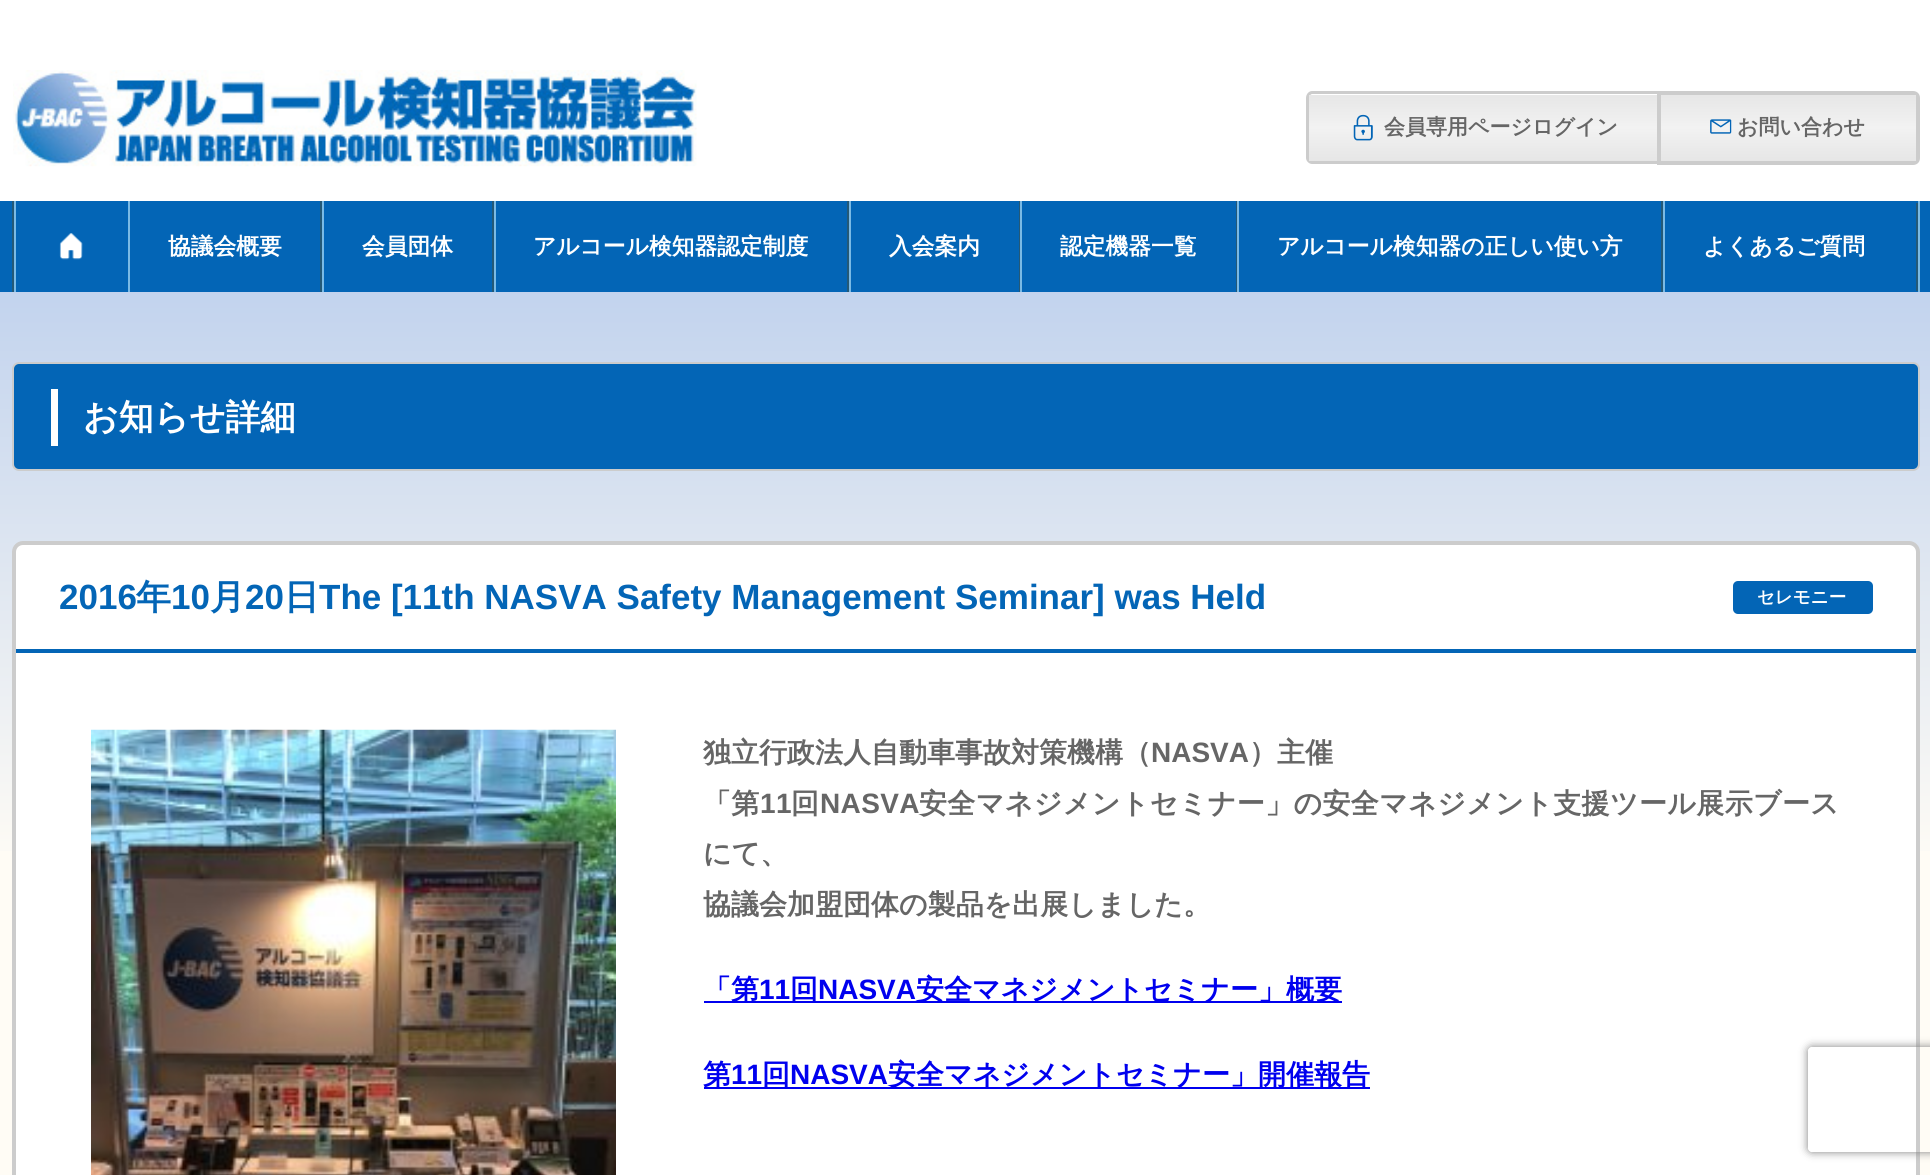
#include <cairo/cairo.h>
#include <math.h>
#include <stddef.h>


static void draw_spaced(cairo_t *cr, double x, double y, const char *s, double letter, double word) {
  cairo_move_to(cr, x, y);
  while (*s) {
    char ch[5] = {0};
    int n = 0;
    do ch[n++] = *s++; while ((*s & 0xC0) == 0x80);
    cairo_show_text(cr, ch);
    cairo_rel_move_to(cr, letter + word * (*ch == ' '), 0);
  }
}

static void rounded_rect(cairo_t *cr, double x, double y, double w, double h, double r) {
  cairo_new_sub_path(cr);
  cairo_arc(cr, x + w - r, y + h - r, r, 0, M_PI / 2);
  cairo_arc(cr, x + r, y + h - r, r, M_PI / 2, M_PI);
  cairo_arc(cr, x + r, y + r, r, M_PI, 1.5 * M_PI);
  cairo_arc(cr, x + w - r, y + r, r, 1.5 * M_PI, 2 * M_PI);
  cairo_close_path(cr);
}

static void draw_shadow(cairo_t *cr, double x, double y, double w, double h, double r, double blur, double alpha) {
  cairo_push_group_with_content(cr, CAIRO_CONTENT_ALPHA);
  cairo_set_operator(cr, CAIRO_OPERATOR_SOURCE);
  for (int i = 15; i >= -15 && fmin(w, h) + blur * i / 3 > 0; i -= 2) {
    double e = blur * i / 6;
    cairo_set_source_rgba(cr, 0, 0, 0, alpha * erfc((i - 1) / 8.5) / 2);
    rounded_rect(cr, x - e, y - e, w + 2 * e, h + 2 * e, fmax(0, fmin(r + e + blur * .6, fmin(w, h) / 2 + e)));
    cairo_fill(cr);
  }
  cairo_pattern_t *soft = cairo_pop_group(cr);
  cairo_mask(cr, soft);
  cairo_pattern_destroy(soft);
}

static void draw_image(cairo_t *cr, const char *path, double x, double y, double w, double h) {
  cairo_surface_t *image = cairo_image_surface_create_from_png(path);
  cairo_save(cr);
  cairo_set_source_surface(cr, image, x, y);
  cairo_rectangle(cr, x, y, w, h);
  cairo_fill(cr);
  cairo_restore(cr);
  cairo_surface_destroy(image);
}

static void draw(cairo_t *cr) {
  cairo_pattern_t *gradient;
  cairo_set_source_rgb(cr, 1, 252 / 255.0, 245 / 255.0);
  cairo_paint(cr);
  cairo_set_source_rgb(cr, 1, 1, 1);
  cairo_rectangle(cr, 0, 0, 1930, 201);
  cairo_fill(cr);
  draw_image(cr, "images/1.png", 13, 70, 684, 97);
  cairo_set_source_rgb(cr, 204 / 255.0, 204 / 255.0, 204 / 255.0);
  cairo_set_fill_rule(cr, CAIRO_FILL_RULE_EVEN_ODD);
  cairo_new_path(cr);
  cairo_move_to(cr, 1312, 91);
  cairo_line_to(cr, 1657, 91);
  cairo_line_to(cr, 1657, 164);
  cairo_line_to(cr, 1312, 164);
  cairo_curve_to(cr, 1309, 164, 1306, 161, 1306, 158);
  cairo_line_to(cr, 1306, 98);
  cairo_curve_to(cr, 1306, 94, 1309, 91, 1312, 91);
  cairo_close_path(cr);
  cairo_move_to(cr, 1312, 94);
  cairo_line_to(cr, 1657, 94);
  cairo_line_to(cr, 1657, 161);
  cairo_line_to(cr, 1312, 161);
  cairo_curve_to(cr, 1311, 161, 1309, 159, 1309, 158);
  cairo_line_to(cr, 1309, 98);
  cairo_curve_to(cr, 1309, 96, 1311, 94, 1312, 94);
  cairo_close_path(cr);
  cairo_fill(cr);
  gradient = cairo_pattern_create_linear(1483, 94, 1483, 161);
  cairo_pattern_add_color_stop_rgba(gradient, 0, 230 / 255.0, 230 / 255.0, 230 / 255.0, 1);
  cairo_pattern_add_color_stop_rgba(gradient, 0.5, 242 / 255.0, 242 / 255.0, 242 / 255.0, 1);
  cairo_pattern_add_color_stop_rgba(gradient, 1, 230 / 255.0, 230 / 255.0, 230 / 255.0, 1);
  cairo_set_source(cr, gradient);
  cairo_pattern_destroy(gradient);
  cairo_rectangle(cr, 1309, 95, 348, 66);
  cairo_fill(cr);
  draw_image(cr, "images/2.png", 1353, 114, 20, 27);
  cairo_new_path(cr);
  cairo_move_to(cr, 1659, 93);
  cairo_line_to(cr, 1913, 93);
  cairo_curve_to(cr, 1916, 93, 1918, 95, 1918, 98);
  cairo_line_to(cr, 1918, 158);
  cairo_curve_to(cr, 1918, 161, 1916, 163, 1913, 163);
  cairo_line_to(cr, 1659, 163);
  cairo_close_path(cr);
  cairo_set_source_rgb(cr, 204 / 255.0, 204 / 255.0, 204 / 255.0);
  cairo_set_line_width(cr, 4);
  cairo_stroke(cr);
  gradient = cairo_pattern_create_linear(1789, 94, 1789, 161);
  cairo_pattern_add_color_stop_rgba(gradient, 0, 230 / 255.0, 230 / 255.0, 230 / 255.0, 1);
  cairo_pattern_add_color_stop_rgba(gradient, 0.5, 242 / 255.0, 242 / 255.0, 242 / 255.0, 1);
  cairo_pattern_add_color_stop_rgba(gradient, 1, 230 / 255.0, 230 / 255.0, 230 / 255.0, 1);
  cairo_set_source(cr, gradient);
  cairo_pattern_destroy(gradient);
  cairo_rectangle(cr, 1661, 95, 255, 66);
  cairo_fill(cr);
  draw_image(cr, "images/3.png", 1710, 119, 22, 15);
  cairo_set_source_rgb(cr, 3 / 255.0, 101 / 255.0, 182 / 255.0);
  cairo_rectangle(cr, 0, 201, 1930, 91);
  cairo_fill(cr);
  cairo_set_source_rgb(cr, 122 / 255.0, 186 / 255.0, 229 / 255.0);
  cairo_rectangle(cr, 1918, 201, 2, 91);
  cairo_fill(cr);
  cairo_set_source_rgb(cr, 36 / 255.0, 89 / 255.0, 119 / 255.0);
  cairo_rectangle(cr, 12, 201, 2, 91);
  cairo_fill(cr);
  cairo_set_source_rgb(cr, 122 / 255.0, 186 / 255.0, 229 / 255.0);
  cairo_rectangle(cr, 14, 201, 2, 91);
  cairo_fill(cr);
  draw_image(cr, "images/4.png", 59, 233, 24, 27);
  cairo_set_source_rgb(cr, 36 / 255.0, 89 / 255.0, 119 / 255.0);
  cairo_rectangle(cr, 320, 201, 2, 91);
  cairo_fill(cr);
  cairo_set_source_rgb(cr, 122 / 255.0, 186 / 255.0, 229 / 255.0);
  cairo_rectangle(cr, 128, 201, 2, 91);
  cairo_fill(cr);
  cairo_set_source_rgb(cr, 36 / 255.0, 89 / 255.0, 119 / 255.0);
  cairo_rectangle(cr, 492, 201, 2, 91);
  cairo_fill(cr);
  cairo_set_source_rgb(cr, 122 / 255.0, 186 / 255.0, 229 / 255.0);
  cairo_rectangle(cr, 322, 201, 2, 91);
  cairo_fill(cr);
  cairo_set_source_rgb(cr, 36 / 255.0, 89 / 255.0, 119 / 255.0);
  cairo_rectangle(cr, 847, 201, 2, 91);
  cairo_fill(cr);
  cairo_set_source_rgb(cr, 122 / 255.0, 186 / 255.0, 229 / 255.0);
  cairo_rectangle(cr, 494, 201, 2, 91);
  cairo_fill(cr);
  cairo_set_source_rgb(cr, 36 / 255.0, 89 / 255.0, 119 / 255.0);
  cairo_rectangle(cr, 1019, 201, 1, 91);
  cairo_fill(cr);
  cairo_set_source_rgb(cr, 122 / 255.0, 186 / 255.0, 229 / 255.0);
  cairo_rectangle(cr, 849, 201, 2, 91);
  cairo_fill(cr);
  cairo_set_source_rgb(cr, 36 / 255.0, 89 / 255.0, 119 / 255.0);
  cairo_rectangle(cr, 1236, 201, 1, 91);
  cairo_fill(cr);
  cairo_set_source_rgb(cr, 122 / 255.0, 186 / 255.0, 229 / 255.0);
  cairo_rectangle(cr, 1020, 201, 2, 91);
  cairo_fill(cr);
  cairo_set_source_rgb(cr, 36 / 255.0, 89 / 255.0, 119 / 255.0);
  cairo_rectangle(cr, 1661, 201, 2, 91);
  cairo_fill(cr);
  cairo_set_source_rgb(cr, 122 / 255.0, 186 / 255.0, 229 / 255.0);
  cairo_rectangle(cr, 1237, 201, 2, 91);
  cairo_fill(cr);
  cairo_rectangle(cr, 1663, 201, 2, 91);
  cairo_fill(cr);
  cairo_set_source_rgb(cr, 36 / 255.0, 89 / 255.0, 119 / 255.0);
  cairo_rectangle(cr, 1916, 203, 2, 88);
  cairo_fill(cr);
  gradient = cairo_pattern_create_linear(965, 0, 965, 875);
  cairo_pattern_add_color_stop_rgba(gradient, 0, 164 / 255.0, 191 / 255.0, 234 / 255.0, 1);
  cairo_pattern_add_color_stop_rgba(gradient, 1, 1, 252 / 255.0, 245 / 255.0, 1);
  cairo_set_source(cr, gradient);
  cairo_pattern_destroy(gradient);
  cairo_rectangle(cr, 0, 292, 1930, 559);
  cairo_fill(cr);
  cairo_set_source_rgb(cr, 3 / 255.0, 101 / 255.0, 182 / 255.0);
  rounded_rect(cr, 13, 363, 1906, 107, 6);
  cairo_fill_preserve(cr);
  cairo_set_source_rgb(cr, 204 / 255.0, 204 / 255.0, 204 / 255.0);
  cairo_set_line_width(cr, 2);
  cairo_stroke(cr);
  cairo_set_source_rgb(cr, 1, 1, 1);
  cairo_rectangle(cr, 51, 389, 7, 57);
  cairo_fill(cr);
  rounded_rect(cr, 14, 543, 1904, 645, 9);
  cairo_fill_preserve(cr);
  cairo_set_source_rgb(cr, 204 / 255.0, 204 / 255.0, 204 / 255.0);
  cairo_set_line_width(cr, 4);
  cairo_stroke(cr);
  cairo_set_source_rgb(cr, 3 / 255.0, 101 / 255.0, 182 / 255.0);
  cairo_rectangle(cr, 16, 649, 1900, 4);
  cairo_fill(cr);
  rounded_rect(cr, 1733, 581, 140, 33, 5);
  cairo_fill(cr);
  draw_image(cr, "images/5.png", 91, 729, 525, 446);
  cairo_set_source_rgb(cr, 0, 0, 238 / 255.0);
  cairo_rectangle(cr, 704, 1001, 638, 2);
  cairo_fill(cr);
  cairo_rectangle(cr, 704, 1087, 666, 2);
  cairo_fill(cr);
  cairo_save(cr);
  cairo_new_path(cr);
  cairo_move_to(cr, 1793, 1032);
  cairo_line_to(cr, 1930, 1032);
  cairo_line_to(cr, 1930, 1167);
  cairo_line_to(cr, 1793, 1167);
  cairo_close_path(cr);
  cairo_move_to(cr, 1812, 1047);
  cairo_line_to(cr, 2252, 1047);
  cairo_curve_to(cr, 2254, 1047, 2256, 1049, 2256, 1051);
  cairo_line_to(cr, 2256, 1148);
  cairo_curve_to(cr, 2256, 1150, 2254, 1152, 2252, 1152);
  cairo_line_to(cr, 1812, 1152);
  cairo_curve_to(cr, 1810, 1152, 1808, 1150, 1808, 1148);
  cairo_line_to(cr, 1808, 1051);
  cairo_curve_to(cr, 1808, 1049, 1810, 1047, 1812, 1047);
  cairo_close_path(cr);
  cairo_clip(cr);
  cairo_set_source_rgb(cr, 128 / 255.0, 128 / 255.0, 128 / 255.0);
  draw_shadow(cr, 1808, 1047, 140, 105, 4, 4.5, 1);
  cairo_restore(cr);
  cairo_select_font_face(cr, "WenQuanYi Zen Hei", CAIRO_FONT_SLANT_NORMAL, CAIRO_FONT_WEIGHT_BOLD);
  cairo_set_font_size(cr, 21);
  cairo_set_source_rgb(cr, 102 / 255.0, 102 / 255.0, 102 / 255.0);
  cairo_move_to(cr, 1384, 134);
  cairo_show_text(cr, "会員専用ページログイン");
  cairo_move_to(cr, 1737, 134);
  cairo_show_text(cr, "お問い合わせ");
  cairo_set_font_size(cr, 22.75);
  cairo_set_source_rgb(cr, 1, 1, 1);
  cairo_move_to(cr, 168, 254);
  cairo_show_text(cr, "協議会概要");
  cairo_move_to(cr, 362, 254);
  cairo_show_text(cr, "会員団体");
  cairo_move_to(cr, 533, 254);
  cairo_show_text(cr, "アルコール検知器認定制度");
  cairo_move_to(cr, 889, 254);
  cairo_show_text(cr, "入会案内");
  cairo_move_to(cr, 1060, 254);
  cairo_show_text(cr, "認定機器一覧");
  cairo_move_to(cr, 1277, 254);
  cairo_show_text(cr, "アルコール検知器の正しい使い方");
  cairo_move_to(cr, 1703, 254);
  cairo_show_text(cr, "よくあるご質問");
  cairo_set_font_size(cr, 35);
  cairo_move_to(cr, 83, 429);
  cairo_show_text(cr, "お知らせ詳細");
  cairo_select_font_face(cr, "Liberation Sans", CAIRO_FONT_SLANT_NORMAL, CAIRO_FONT_WEIGHT_BOLD);
  cairo_set_source_rgb(cr, 3 / 255.0, 101 / 255.0, 182 / 255.0);
  cairo_move_to(cr, 59, 609);
  cairo_show_text(cr, "2016");
  cairo_select_font_face(cr, "WenQuanYi Zen Hei", CAIRO_FONT_SLANT_NORMAL, CAIRO_FONT_WEIGHT_BOLD);
  cairo_move_to(cr, 136, 609);
  cairo_show_text(cr, "年");
  cairo_select_font_face(cr, "Liberation Sans", CAIRO_FONT_SLANT_NORMAL, CAIRO_FONT_WEIGHT_BOLD);
  cairo_move_to(cr, 171, 609);
  cairo_show_text(cr, "10");
  cairo_select_font_face(cr, "WenQuanYi Zen Hei", CAIRO_FONT_SLANT_NORMAL, CAIRO_FONT_WEIGHT_BOLD);
  cairo_move_to(cr, 210, 609);
  cairo_show_text(cr, "月");
  cairo_select_font_face(cr, "Liberation Sans", CAIRO_FONT_SLANT_NORMAL, CAIRO_FONT_WEIGHT_BOLD);
  cairo_move_to(cr, 245, 609);
  cairo_show_text(cr, "20");
  cairo_select_font_face(cr, "WenQuanYi Zen Hei", CAIRO_FONT_SLANT_NORMAL, CAIRO_FONT_WEIGHT_BOLD);
  cairo_move_to(cr, 284, 609);
  cairo_show_text(cr, "日");
  cairo_select_font_face(cr, "Liberation Sans", CAIRO_FONT_SLANT_NORMAL, CAIRO_FONT_WEIGHT_BOLD);
  cairo_move_to(cr, 319, 609);
  cairo_show_text(cr, "The [11th NASVA Safety Management Seminar] was Held");
  cairo_select_font_face(cr, "WenQuanYi Zen Hei", CAIRO_FONT_SLANT_NORMAL, CAIRO_FONT_WEIGHT_BOLD);
  cairo_set_font_size(cr, 17.5);
  cairo_set_source_rgb(cr, 1, 1, 1);
  cairo_move_to(cr, 1757, 603);
  cairo_show_text(cr, "セレモニー");
  cairo_set_font_size(cr, 28);
  cairo_set_source_rgb(cr, 102 / 255.0, 102 / 255.0, 102 / 255.0);
  cairo_move_to(cr, 703, 762);
  cairo_show_text(cr, "独立行政法人自動車事故対策機構（");
  cairo_select_font_face(cr, "Liberation Sans", CAIRO_FONT_SLANT_NORMAL, CAIRO_FONT_WEIGHT_BOLD);
  cairo_move_to(cr, 1151, 762);
  cairo_show_text(cr, "NASVA");
  cairo_select_font_face(cr, "WenQuanYi Zen Hei", CAIRO_FONT_SLANT_NORMAL, CAIRO_FONT_WEIGHT_BOLD);
  cairo_move_to(cr, 1249, 762);
  cairo_show_text(cr, "）主催");
  draw_spaced(cr, 703, 813, "「第", 0.35, 0);
  cairo_select_font_face(cr, "Liberation Sans", CAIRO_FONT_SLANT_NORMAL, CAIRO_FONT_WEIGHT_BOLD);
  draw_spaced(cr, 760, 813, "11", 0.35, 0);
  cairo_select_font_face(cr, "WenQuanYi Zen Hei", CAIRO_FONT_SLANT_NORMAL, CAIRO_FONT_WEIGHT_BOLD);
  draw_spaced(cr, 791, 813, "回", 0.35, 0);
  cairo_select_font_face(cr, "Liberation Sans", CAIRO_FONT_SLANT_NORMAL, CAIRO_FONT_WEIGHT_BOLD);
  draw_spaced(cr, 820, 813, "NASVA", 0.35, 0);
  cairo_select_font_face(cr, "WenQuanYi Zen Hei", CAIRO_FONT_SLANT_NORMAL, CAIRO_FONT_WEIGHT_BOLD);
  draw_spaced(cr, 919, 813, "安全マネジメントセミナー」の安全マネジメント支援ツール展示ブース", 0.35, 0);
  cairo_move_to(cr, 703, 863);
  cairo_show_text(cr, "にて、");
  cairo_move_to(cr, 703, 914);
  cairo_show_text(cr, "協議会加盟団体の製品を出展しました。");
  cairo_set_source_rgb(cr, 0, 0, 238 / 255.0);
  cairo_move_to(cr, 703, 999);
  cairo_show_text(cr, "「第");
  cairo_select_font_face(cr, "Liberation Sans", CAIRO_FONT_SLANT_NORMAL, CAIRO_FONT_WEIGHT_BOLD);
  cairo_move_to(cr, 759, 999);
  cairo_show_text(cr, "11");
  cairo_select_font_face(cr, "WenQuanYi Zen Hei", CAIRO_FONT_SLANT_NORMAL, CAIRO_FONT_WEIGHT_BOLD);
  cairo_move_to(cr, 790, 999);
  cairo_show_text(cr, "回");
  cairo_select_font_face(cr, "Liberation Sans", CAIRO_FONT_SLANT_NORMAL, CAIRO_FONT_WEIGHT_BOLD);
  cairo_move_to(cr, 818, 999);
  cairo_show_text(cr, "NASVA");
  cairo_select_font_face(cr, "WenQuanYi Zen Hei", CAIRO_FONT_SLANT_NORMAL, CAIRO_FONT_WEIGHT_BOLD);
  cairo_move_to(cr, 916, 999);
  cairo_show_text(cr, "安全マネジメントセミナー」概要");
  cairo_move_to(cr, 703, 1084);
  cairo_show_text(cr, "第");
  cairo_select_font_face(cr, "Liberation Sans", CAIRO_FONT_SLANT_NORMAL, CAIRO_FONT_WEIGHT_BOLD);
  cairo_move_to(cr, 731, 1084);
  cairo_show_text(cr, "11");
  cairo_select_font_face(cr, "WenQuanYi Zen Hei", CAIRO_FONT_SLANT_NORMAL, CAIRO_FONT_WEIGHT_BOLD);
  cairo_move_to(cr, 762, 1084);
  cairo_show_text(cr, "回");
  cairo_select_font_face(cr, "Liberation Sans", CAIRO_FONT_SLANT_NORMAL, CAIRO_FONT_WEIGHT_BOLD);
  cairo_move_to(cr, 790, 1084);
  cairo_show_text(cr, "NASVA");
  cairo_select_font_face(cr, "WenQuanYi Zen Hei", CAIRO_FONT_SLANT_NORMAL, CAIRO_FONT_WEIGHT_BOLD);
  cairo_move_to(cr, 888, 1084);
  cairo_show_text(cr, "安全マネジメントセミナー」開催報告");
}

int main(void) {
  cairo_surface_t *surface = cairo_image_surface_create(CAIRO_FORMAT_RGB24, 1930, 1175);
  cairo_t *cr = cairo_create(surface);
  cairo_font_options_t *options = cairo_font_options_create();
  cairo_font_options_set_hint_metrics(options, CAIRO_HINT_METRICS_OFF);
  cairo_font_options_set_hint_style(options, CAIRO_HINT_STYLE_NONE);
  cairo_set_font_options(cr, options);
  cairo_set_miter_limit(cr, 4);
  draw(cr);
  cairo_surface_write_to_png(surface, "out.png");
  cairo_font_options_destroy(options);
  cairo_destroy(cr);
  cairo_surface_destroy(surface);
  return 0;
}
